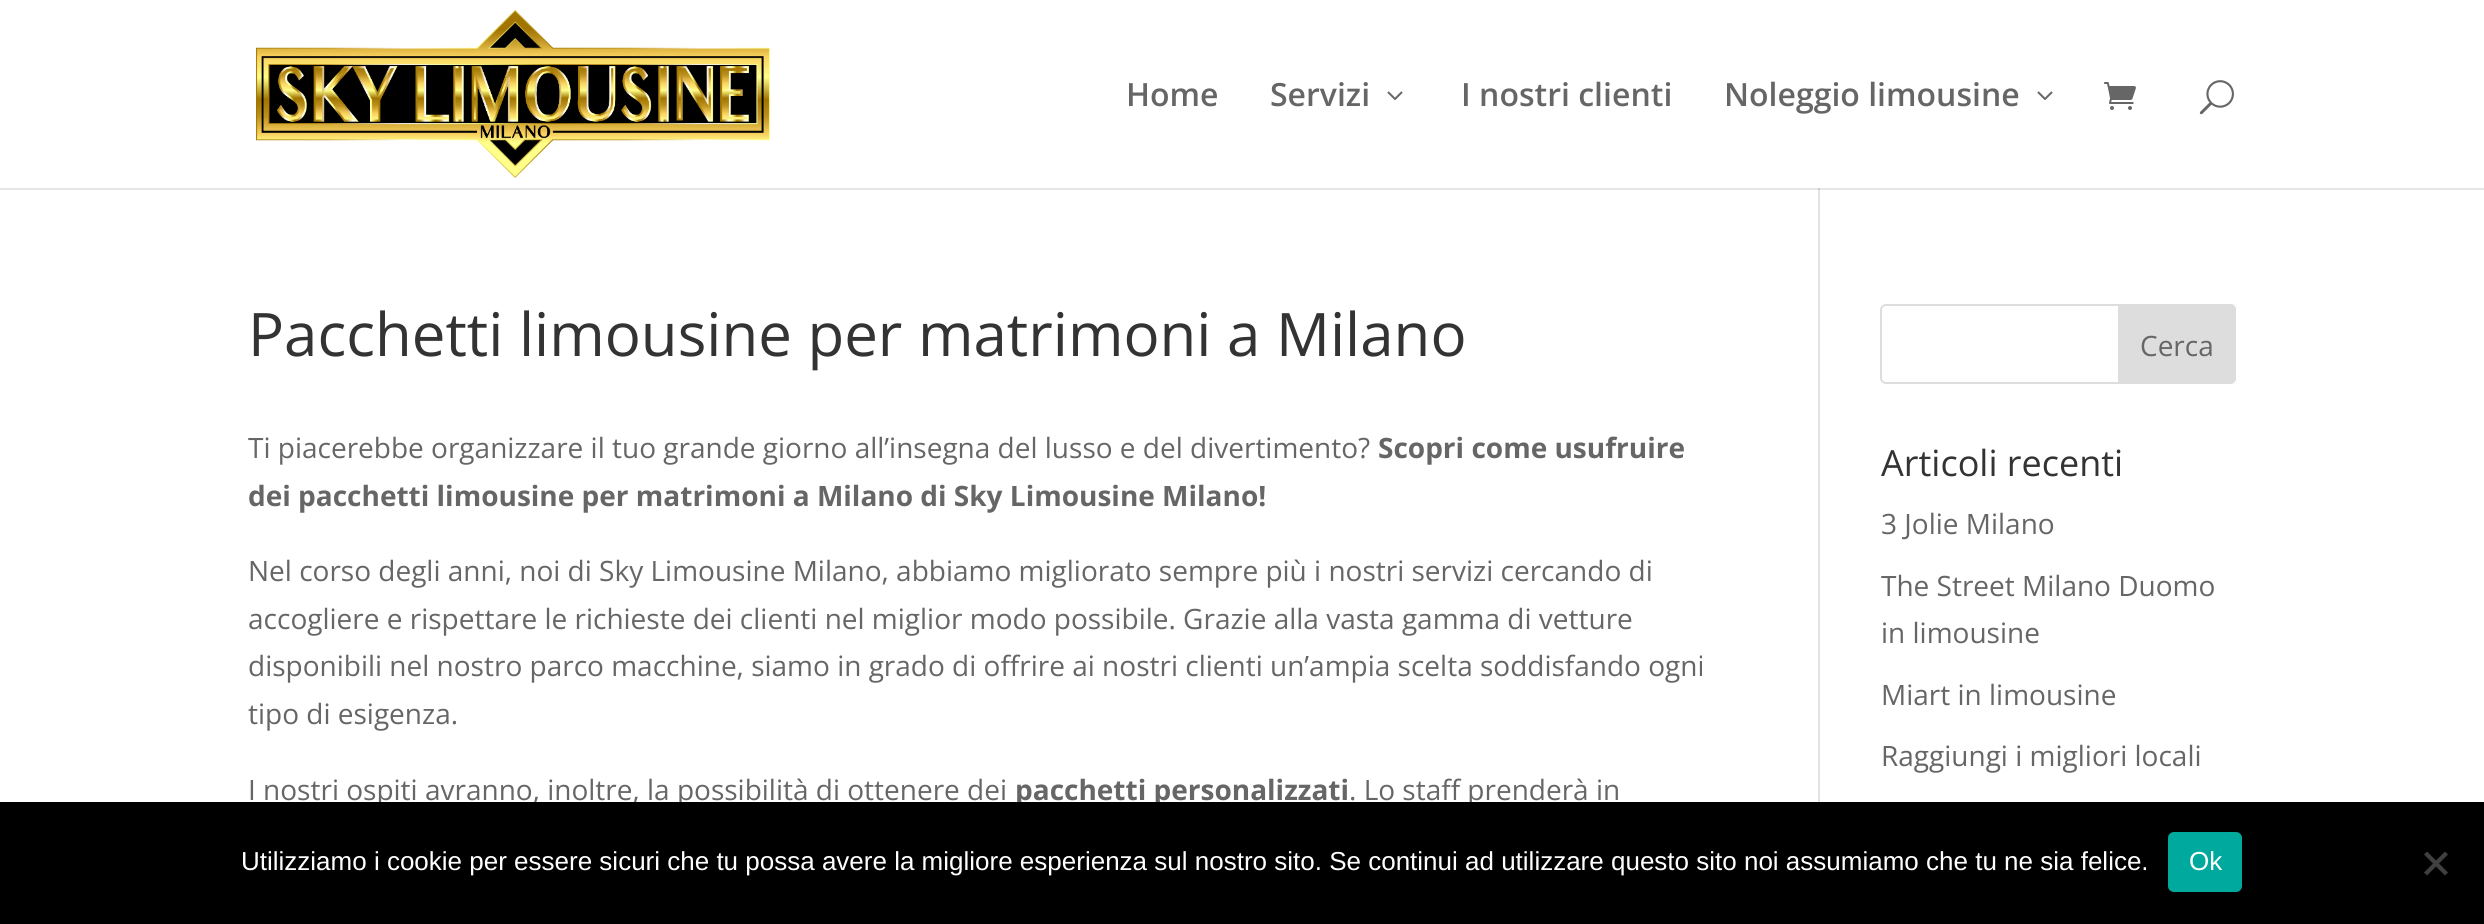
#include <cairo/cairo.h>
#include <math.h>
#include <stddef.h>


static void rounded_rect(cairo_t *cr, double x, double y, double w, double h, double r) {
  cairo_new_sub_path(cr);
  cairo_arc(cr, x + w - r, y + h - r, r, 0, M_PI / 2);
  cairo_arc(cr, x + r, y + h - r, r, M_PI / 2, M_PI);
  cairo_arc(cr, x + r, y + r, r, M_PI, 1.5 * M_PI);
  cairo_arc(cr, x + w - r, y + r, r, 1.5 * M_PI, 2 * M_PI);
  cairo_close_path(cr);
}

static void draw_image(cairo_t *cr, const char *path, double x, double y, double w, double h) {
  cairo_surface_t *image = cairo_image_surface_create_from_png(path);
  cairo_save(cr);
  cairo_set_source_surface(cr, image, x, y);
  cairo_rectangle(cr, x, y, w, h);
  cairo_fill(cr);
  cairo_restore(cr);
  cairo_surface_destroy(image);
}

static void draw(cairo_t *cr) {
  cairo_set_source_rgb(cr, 1, 1, 1);
  cairo_paint(cr);
  cairo_set_source_rgb(cr, 230 / 255.0, 230 / 255.0, 230 / 255.0);
  cairo_rectangle(cr, 0, 188, 2484, 2);
  cairo_fill(cr);
  draw_image(cr, "images/1.png", 256, 10, 514, 168);
  draw_image(cr, "images/2.png", 1387, 91, 16, 9);
  draw_image(cr, "images/2.png", 2037, 91, 16, 9);
  draw_image(cr, "images/3.png", 2104, 82, 32, 28);
  draw_image(cr, "images/4.png", 2199, 80, 35, 35);
  cairo_set_source_rgb(cr, 226 / 255.0, 226 / 255.0, 226 / 255.0);
  cairo_rectangle(cr, 1818, 188, 2, 614);
  cairo_fill(cr);
  cairo_set_source_rgb(cr, 203 / 255.0, 203 / 255.0, 203 / 255.0);
  cairo_rectangle(cr, 1818, 188, 2, 2);
  cairo_fill(cr);
  rounded_rect(cr, 1881, 305, 354, 78, 5);
  cairo_set_source_rgb(cr, 221 / 255.0, 221 / 255.0, 221 / 255.0);
  cairo_stroke(cr);
  cairo_new_path(cr);
  cairo_move_to(cr, 2119, 305);
  cairo_line_to(cr, 2230, 305);
  cairo_curve_to(cr, 2233, 305, 2235, 307, 2235, 310);
  cairo_line_to(cr, 2235, 378);
  cairo_curve_to(cr, 2235, 381, 2233, 383, 2230, 383);
  cairo_line_to(cr, 2119, 383);
  cairo_close_path(cr);
  cairo_fill_preserve(cr);
  cairo_stroke(cr);
  cairo_select_font_face(cr, "Open Sans SemiBold", CAIRO_FONT_SLANT_NORMAL, CAIRO_FONT_WEIGHT_NORMAL);
  cairo_set_font_size(cr, 32);
  cairo_set_source_rgb(cr, 102 / 255.0, 102 / 255.0, 102 / 255.0);
  cairo_move_to(cr, 1126, 106);
  cairo_show_text(cr, "Home");
  cairo_move_to(cr, 1270, 106);
  cairo_show_text(cr, "Servizi");
  cairo_move_to(cr, 1461, 106);
  cairo_show_text(cr, "I nostri clienti");
  cairo_move_to(cr, 1724, 106);
  cairo_show_text(cr, "Noleggio limousine");
  cairo_select_font_face(cr, "Open Sans", CAIRO_FONT_SLANT_NORMAL, CAIRO_FONT_WEIGHT_NORMAL);
  cairo_set_font_size(cr, 60);
  cairo_set_source_rgb(cr, 51 / 255.0, 51 / 255.0, 51 / 255.0);
  cairo_move_to(cr, 248, 356);
  cairo_show_text(cr, "Pacchetti limousine per matrimoni a Milano");
  cairo_set_font_size(cr, 28);
  cairo_set_source_rgb(cr, 102 / 255.0, 102 / 255.0, 102 / 255.0);
  cairo_move_to(cr, 248, 458);
  cairo_show_text(cr, "Ti piacerebbe organizzare il tuo grande giorno all’insegna del lusso e del divertimento?");
  cairo_select_font_face(cr, "Open Sans", CAIRO_FONT_SLANT_NORMAL, CAIRO_FONT_WEIGHT_BOLD);
  cairo_move_to(cr, 1378, 458);
  cairo_show_text(cr, "Scopri come usufruire");
  cairo_move_to(cr, 248, 506);
  cairo_show_text(cr, "dei pacchetti limousine per matrimoni a Milano di Sky Limousine Milano!");
  cairo_select_font_face(cr, "Open Sans", CAIRO_FONT_SLANT_NORMAL, CAIRO_FONT_WEIGHT_NORMAL);
  cairo_move_to(cr, 248, 581);
  cairo_show_text(cr, "Nel corso degli anni, noi di Sky Limousine Milano, abbiamo migliorato sempre più i nostri servizi cercando di");
  cairo_move_to(cr, 248, 629);
  cairo_show_text(cr, "accogliere e rispettare le richieste dei clienti nel miglior modo possibile. Grazie alla vasta gamma di vetture");
  cairo_move_to(cr, 248, 676);
  cairo_show_text(cr, "disponibili nel nostro parco macchine, siamo in grado di offrire ai nostri clienti un’ampia scelta soddisfando ogni");
  cairo_move_to(cr, 248, 724);
  cairo_show_text(cr, "tipo di esigenza.");
  cairo_move_to(cr, 248, 800);
  cairo_show_text(cr, "I nostri ospiti avranno, inoltre, la possibilità di ottenere dei");
  cairo_select_font_face(cr, "Open Sans", CAIRO_FONT_SLANT_NORMAL, CAIRO_FONT_WEIGHT_BOLD);
  cairo_move_to(cr, 1015, 800);
  cairo_show_text(cr, "pacchetti personalizzati");
  cairo_select_font_face(cr, "Open Sans", CAIRO_FONT_SLANT_NORMAL, CAIRO_FONT_WEIGHT_NORMAL);
  cairo_move_to(cr, 1349, 800);
  cairo_show_text(cr, ". Lo staff prenderà in");
  cairo_move_to(cr, 2140, 356);
  cairo_show_text(cr, "Cerca");
  cairo_set_font_size(cr, 36);
  cairo_set_source_rgb(cr, 51 / 255.0, 51 / 255.0, 51 / 255.0);
  cairo_move_to(cr, 1881, 476);
  cairo_show_text(cr, "Articoli recenti");
  cairo_set_font_size(cr, 28);
  cairo_set_source_rgb(cr, 102 / 255.0, 102 / 255.0, 102 / 255.0);
  cairo_move_to(cr, 1881, 534);
  cairo_show_text(cr, "3 Jolie Milano");
  cairo_move_to(cr, 1881, 596);
  cairo_show_text(cr, "The Street Milano Duomo");
  cairo_move_to(cr, 1881, 643);
  cairo_show_text(cr, "in limousine");
  cairo_move_to(cr, 1881, 705);
  cairo_show_text(cr, "Miart in limousine");
  cairo_move_to(cr, 1881, 766);
  cairo_show_text(cr, "Raggiungi i migliori locali");
  cairo_set_source_rgb(cr, 0, 0, 0);
  cairo_rectangle(cr, 0, 802, 2484, 122);
  cairo_fill(cr);
  cairo_select_font_face(cr, "Liberation Sans", CAIRO_FONT_SLANT_NORMAL, CAIRO_FONT_WEIGHT_NORMAL);
  cairo_set_font_size(cr, 26);
  cairo_set_source_rgb(cr, 1, 1, 1);
  cairo_move_to(cr, 241, 870);
  cairo_show_text(cr, "Utilizziamo i cookie per essere sicuri che tu possa avere la migliore esperienza sul nostro sito. Se continui ad utilizzare questo sito noi assumiamo che tu ne sia felice.");
  cairo_set_source_rgb(cr, 0, 169 / 255.0, 157 / 255.0);
  rounded_rect(cr, 2168, 832, 74, 60, 6);
  cairo_fill(cr);
  cairo_set_source_rgb(cr, 1, 1, 1);
  cairo_move_to(cr, 2189, 870);
  cairo_show_text(cr, "Ok");
  cairo_set_source_rgb(cr, 64 / 255.0, 64 / 255.0, 64 / 255.0);
  cairo_new_path(cr);
  cairo_move_to(cr, 2445, 851.5);
  cairo_line_to(cr, 2448, 854.5);
  cairo_line_to(cr, 2427, 875.5);
  cairo_line_to(cr, 2424, 872.5);
  cairo_close_path(cr);
  cairo_fill(cr);
  cairo_new_path(cr);
  cairo_move_to(cr, 2424, 854.5);
  cairo_line_to(cr, 2427, 851.5);
  cairo_line_to(cr, 2448, 872.5);
  cairo_line_to(cr, 2445, 875.5);
  cairo_close_path(cr);
  cairo_fill(cr);
}

int main(void) {
  cairo_surface_t *surface = cairo_image_surface_create(CAIRO_FORMAT_RGB24, 2484, 924);
  cairo_t *cr = cairo_create(surface);
  cairo_font_options_t *options = cairo_font_options_create();
  cairo_font_options_set_hint_metrics(options, CAIRO_HINT_METRICS_OFF);
  cairo_font_options_set_hint_style(options, CAIRO_HINT_STYLE_NONE);
  cairo_set_font_options(cr, options);
  cairo_set_miter_limit(cr, 4);
  draw(cr);
  cairo_surface_write_to_png(surface, "out.png");
  cairo_font_options_destroy(options);
  cairo_destroy(cr);
  cairo_surface_destroy(surface);
  return 0;
}
